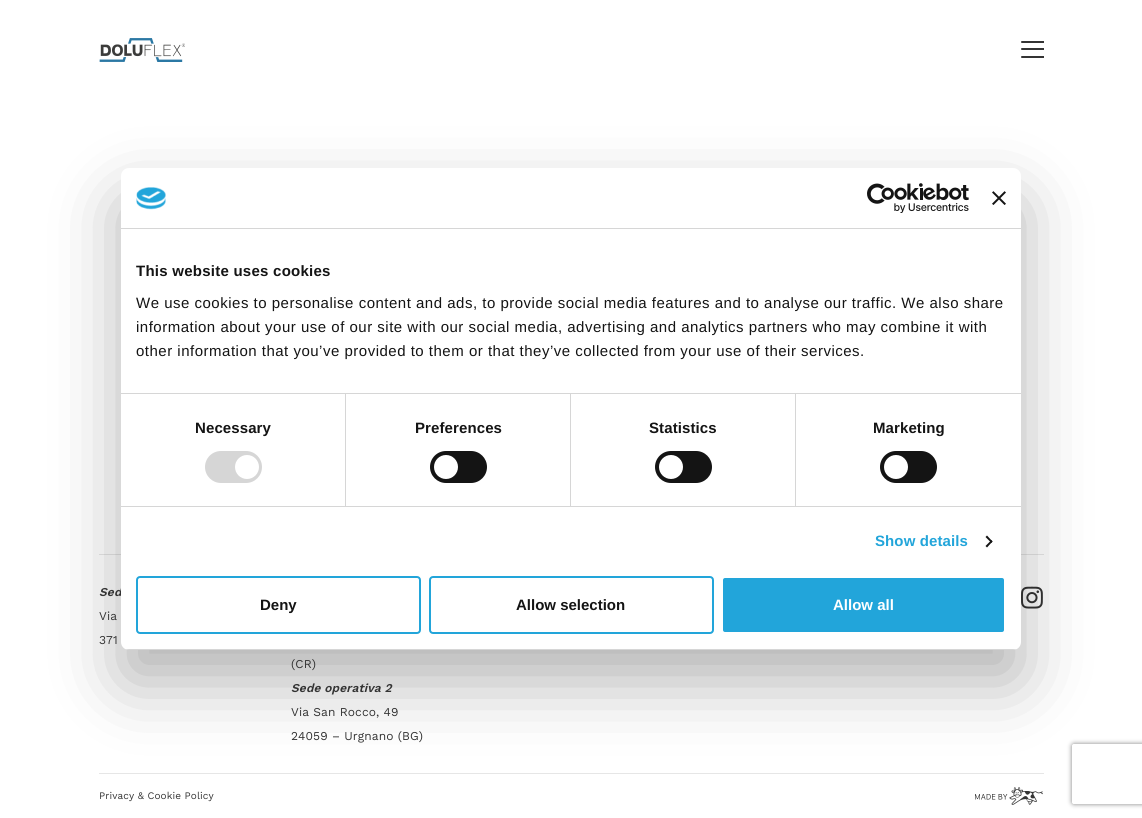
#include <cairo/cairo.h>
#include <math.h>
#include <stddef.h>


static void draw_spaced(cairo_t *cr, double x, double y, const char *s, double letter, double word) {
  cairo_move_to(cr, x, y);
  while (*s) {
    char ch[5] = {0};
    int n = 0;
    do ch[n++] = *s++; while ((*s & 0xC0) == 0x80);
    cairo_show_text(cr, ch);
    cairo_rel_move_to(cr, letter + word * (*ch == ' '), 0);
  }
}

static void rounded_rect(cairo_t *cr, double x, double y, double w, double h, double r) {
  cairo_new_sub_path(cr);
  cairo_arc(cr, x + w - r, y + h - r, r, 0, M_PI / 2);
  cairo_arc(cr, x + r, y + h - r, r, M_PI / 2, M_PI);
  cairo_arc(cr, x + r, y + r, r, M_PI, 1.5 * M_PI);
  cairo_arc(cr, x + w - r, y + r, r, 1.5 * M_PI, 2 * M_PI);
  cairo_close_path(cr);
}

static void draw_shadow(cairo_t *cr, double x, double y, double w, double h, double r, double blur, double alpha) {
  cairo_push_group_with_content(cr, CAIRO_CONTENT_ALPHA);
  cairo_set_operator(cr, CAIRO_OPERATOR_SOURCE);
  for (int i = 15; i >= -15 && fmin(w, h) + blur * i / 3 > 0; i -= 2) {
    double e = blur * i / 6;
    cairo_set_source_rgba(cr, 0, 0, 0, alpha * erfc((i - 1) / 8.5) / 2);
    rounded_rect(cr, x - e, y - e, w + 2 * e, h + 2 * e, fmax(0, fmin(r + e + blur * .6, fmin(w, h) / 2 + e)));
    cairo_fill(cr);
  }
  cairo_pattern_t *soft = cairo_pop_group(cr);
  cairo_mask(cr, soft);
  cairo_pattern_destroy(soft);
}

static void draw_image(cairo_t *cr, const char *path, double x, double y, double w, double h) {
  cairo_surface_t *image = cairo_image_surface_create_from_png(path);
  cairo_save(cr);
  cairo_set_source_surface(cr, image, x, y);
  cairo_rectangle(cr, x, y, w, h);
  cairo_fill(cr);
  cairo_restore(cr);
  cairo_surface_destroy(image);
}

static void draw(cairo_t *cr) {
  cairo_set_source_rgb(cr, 1, 1, 1);
  cairo_paint(cr);
  draw_image(cr, "images/1.png", 99, 38, 86, 24);
  cairo_save(cr);
  cairo_rectangle(cr, 1021, 41, 23, 17);
  cairo_clip(cr);
  cairo_new_path(cr);
  cairo_move_to(cr, 1022, 42);
  cairo_line_to(cr, 1050, 42);
  cairo_move_to(cr, 1022, 49);
  cairo_line_to(cr, 1050, 49);
  cairo_move_to(cr, 1022, 57);
  cairo_line_to(cr, 1050, 57);
  cairo_set_source_rgb(cr, 52 / 255.0, 52 / 255.0, 52 / 255.0);
  cairo_set_line_cap(cr, CAIRO_LINE_CAP_ROUND);
  cairo_stroke(cr);
  cairo_restore(cr);
  cairo_set_source_rgb(cr, 230 / 255.0, 230 / 255.0, 230 / 255.0);
  cairo_rectangle(cr, 99, 554, 945, 1);
  cairo_fill(cr);
  draw_image(cr, "images/5.png", 1021, 586, 22, 23);
  cairo_rectangle(cr, 99, 773, 945, 1);
  cairo_fill(cr);
  cairo_set_source_rgb(cr, 0, 0, 0);
  draw_shadow(cr, 121, 200, 900, 482, 8, 34, 0.3);
  draw_image(cr, "images/6.png", 975, 787, 68, 18);
  cairo_save(cr);
  cairo_set_fill_rule(cr, CAIRO_FILL_RULE_EVEN_ODD);
  cairo_new_path(cr);
  cairo_move_to(cr, 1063, 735);
  cairo_line_to(cr, 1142, 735);
  cairo_line_to(cr, 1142, 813);
  cairo_line_to(cr, 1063, 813);
  cairo_close_path(cr);
  cairo_move_to(cr, 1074, 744);
  cairo_line_to(cr, 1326, 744);
  cairo_curve_to(cr, 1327, 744, 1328, 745, 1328, 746);
  cairo_line_to(cr, 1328, 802);
  cairo_curve_to(cr, 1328, 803, 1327, 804, 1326, 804);
  cairo_line_to(cr, 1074, 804);
  cairo_curve_to(cr, 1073, 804, 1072, 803, 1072, 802);
  cairo_line_to(cr, 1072, 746);
  cairo_curve_to(cr, 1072, 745, 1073, 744, 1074, 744);
  cairo_close_path(cr);
  cairo_clip(cr);
  cairo_set_source_rgb(cr, 128 / 255.0, 128 / 255.0, 128 / 255.0);
  draw_shadow(cr, 1072, 744, 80, 60, 2, 2.5, 1);
  cairo_restore(cr);
  cairo_select_font_face(cr, "Work Sans SemiBold", CAIRO_FONT_SLANT_ITALIC, CAIRO_FONT_WEIGHT_NORMAL);
  cairo_set_font_size(cr, 12);
  cairo_set_source_rgb(cr, 52 / 255.0, 52 / 255.0, 52 / 255.0);
  draw_spaced(cr, 99, 596, "Sed", 0.1, 0);
  cairo_set_source_rgb(cr, 1, 1, 1);
  rounded_rect(cr, 121, 168, 900, 482, 8);
  cairo_fill(cr);
  cairo_set_source_rgb(cr, 34 / 255.0, 165 / 255.0, 218 / 255.0);
  rounded_rect(cr, 722, 577, 283, 56, 3);
  cairo_fill_preserve(cr);
  cairo_set_source_rgb(cr, 1, 1, 1);
  cairo_stroke(cr);
  cairo_select_font_face(cr, "Liberation Sans", CAIRO_FONT_SLANT_NORMAL, CAIRO_FONT_WEIGHT_BOLD);
  cairo_set_font_size(cr, 15);
  cairo_move_to(cr, 833, 610);
  cairo_show_text(cr, "Allow all");
  rounded_rect(cr, 430, 577, 283, 56, 3);
  cairo_set_source_rgb(cr, 34 / 255.0, 165 / 255.0, 218 / 255.0);
  cairo_stroke(cr);
  cairo_set_source_rgb(cr, 20 / 255.0, 20 / 255.0, 20 / 255.0);
  cairo_move_to(cr, 516, 610);
  cairo_show_text(cr, "Allow selection");
  rounded_rect(cr, 137, 577, 283, 56, 3);
  cairo_set_source_rgb(cr, 34 / 255.0, 165 / 255.0, 218 / 255.0);
  cairo_stroke(cr);
  cairo_set_source_rgb(cr, 20 / 255.0, 20 / 255.0, 20 / 255.0);
  cairo_move_to(cr, 260, 610);
  cairo_show_text(cr, "Deny");
  cairo_save(cr);
  rounded_rect(cr, 121, 168, 900, 482, 8);
  cairo_clip(cr);
  cairo_set_source_rgb(cr, 214 / 255.0, 214 / 255.0, 214 / 255.0);
  cairo_rectangle(cr, 121, 649, 900, 1);
  cairo_fill(cr);
  cairo_restore(cr);
  cairo_new_path(cr);
  cairo_move_to(cr, 987, 535.5);
  cairo_line_to(cr, 992.5, 541.5);
  cairo_line_to(cr, 991.5, 543);
  cairo_line_to(cr, 985.5, 537);
  cairo_close_path(cr);
  cairo_fill(cr);
  cairo_new_path(cr);
  cairo_move_to(cr, 991.5, 540);
  cairo_line_to(cr, 992.5, 541.5);
  cairo_line_to(cr, 987, 547.5);
  cairo_line_to(cr, 985.5, 546);
  cairo_close_path(cr);
  cairo_fill(cr);
  rounded_rect(cr, 880, 451, 57, 32, 16);
  cairo_fill(cr);
  cairo_set_source_rgb(cr, 1, 1, 1);
  cairo_arc(cr, 896, 467, 12, 0, 2 * M_PI);
  cairo_fill(cr);
  cairo_set_source_rgb(cr, 20 / 255.0, 20 / 255.0, 20 / 255.0);
  rounded_rect(cr, 655, 451, 57, 32, 16);
  cairo_fill(cr);
  cairo_set_source_rgb(cr, 1, 1, 1);
  cairo_arc(cr, 671, 467, 12, 0, 2 * M_PI);
  cairo_fill(cr);
  cairo_set_source_rgb(cr, 20 / 255.0, 20 / 255.0, 20 / 255.0);
  rounded_rect(cr, 430, 451, 57, 32, 16);
  cairo_fill(cr);
  cairo_set_source_rgb(cr, 1, 1, 1);
  cairo_arc(cr, 446, 467, 12, 0, 2 * M_PI);
  cairo_fill(cr);
  cairo_set_source_rgb(cr, 214 / 255.0, 214 / 255.0, 214 / 255.0);
  rounded_rect(cr, 205, 451, 57, 32, 16);
  cairo_fill(cr);
  cairo_set_source_rgb(cr, 1, 1, 1);
  cairo_arc(cr, 247, 467, 12, 0, 2 * M_PI);
  cairo_fill(cr);
  cairo_select_font_face(cr, "Liberation Sans", CAIRO_FONT_SLANT_NORMAL, CAIRO_FONT_WEIGHT_NORMAL);
  cairo_set_source_rgb(cr, 20 / 255.0, 20 / 255.0, 20 / 255.0);
  draw_spaced(cr, 136, 356, "other information that you’ve provided to them or that they’ve collected from your use of their services.", 0.5, 0);
  draw_spaced(cr, 136, 332, "information about your use of our site with our social media, advertising and analytics partners who may combine it with", 0.5, 0);
  draw_spaced(cr, 136, 308, "We use cookies to personalise content and ads, to provide social media features and to analyse our traffic. We also share", 0.5, 0);
  cairo_select_font_face(cr, "Liberation Sans", CAIRO_FONT_SLANT_NORMAL, CAIRO_FONT_WEIGHT_BOLD);
  draw_spaced(cr, 136, 276, "This website uses cookies", 0.25, 0);
  cairo_set_source_rgb(cr, 214 / 255.0, 214 / 255.0, 214 / 255.0);
  cairo_rectangle(cr, 121, 393, 900, 1);
  cairo_fill(cr);
  cairo_set_source_rgb(cr, 34 / 255.0, 165 / 255.0, 218 / 255.0);
  draw_spaced(cr, 875, 546, "Show details", 0.1, 0);
  cairo_set_source_rgb(cr, 20 / 255.0, 20 / 255.0, 20 / 255.0);
  draw_spaced(cr, 873, 433, "Marketing", 0.1, 0);
  draw_spaced(cr, 649, 433, "Statistics", 0.1, 0);
  cairo_set_source_rgb(cr, 214 / 255.0, 214 / 255.0, 214 / 255.0);
  cairo_rectangle(cr, 795, 394, 1, 112);
  cairo_fill(cr);
  cairo_set_source_rgb(cr, 20 / 255.0, 20 / 255.0, 20 / 255.0);
  draw_spaced(cr, 415, 433, "Preferences", 0.1, 0);
  cairo_set_source_rgb(cr, 214 / 255.0, 214 / 255.0, 214 / 255.0);
  cairo_rectangle(cr, 570, 394, 1, 112);
  cairo_fill(cr);
  cairo_set_source_rgb(cr, 20 / 255.0, 20 / 255.0, 20 / 255.0);
  draw_spaced(cr, 195, 433, "Necessary", 0.1, 0);
  cairo_set_source_rgb(cr, 214 / 255.0, 214 / 255.0, 214 / 255.0);
  cairo_rectangle(cr, 345, 394, 1, 112);
  cairo_fill(cr);
  cairo_rectangle(cr, 121, 506, 900, 1);
  cairo_fill(cr);
  draw_image(cr, "images/4.png", 992, 191, 14, 14);
  draw_image(cr, "images/3.png", 867, 183, 102, 30);
  draw_image(cr, "images/2.png", 136, 187, 30, 23);
  cairo_rectangle(cr, 121, 228, 900, 1);
  cairo_fill(cr);
  cairo_select_font_face(cr, "Work Sans", CAIRO_FONT_SLANT_NORMAL, CAIRO_FONT_WEIGHT_NORMAL);
  cairo_set_font_size(cr, 12);
  cairo_set_source_rgb(cr, 52 / 255.0, 52 / 255.0, 52 / 255.0);
  draw_spaced(cr, 99, 620, "Via", 0.1, 0);
  draw_spaced(cr, 99, 644, "371", 0.1, 0);
  draw_spaced(cr, 291, 668, "(CR)", 0.1, 0);
  cairo_select_font_face(cr, "Work Sans SemiBold", CAIRO_FONT_SLANT_ITALIC, CAIRO_FONT_WEIGHT_NORMAL);
  draw_spaced(cr, 291, 692, "Sede operativa 2", 0.1, 0);
  cairo_select_font_face(cr, "Work Sans", CAIRO_FONT_SLANT_NORMAL, CAIRO_FONT_WEIGHT_NORMAL);
  draw_spaced(cr, 291, 716, "Via San Rocco, 49", 0.1, 0);
  draw_spaced(cr, 291, 740, "24059 – Urgnano (BG)", 0.1, 0);
  cairo_set_font_size(cr, 10);
  draw_spaced(cr, 99, 799, "Privacy & Cookie Policy", 0.1, 0);
}

int main(void) {
  cairo_surface_t *surface = cairo_image_surface_create(CAIRO_FORMAT_RGB24, 1142, 818);
  cairo_t *cr = cairo_create(surface);
  cairo_font_options_t *options = cairo_font_options_create();
  cairo_font_options_set_hint_metrics(options, CAIRO_HINT_METRICS_OFF);
  cairo_font_options_set_hint_style(options, CAIRO_HINT_STYLE_NONE);
  cairo_set_font_options(cr, options);
  cairo_set_miter_limit(cr, 4);
  draw(cr);
  cairo_surface_write_to_png(surface, "out.png");
  cairo_font_options_destroy(options);
  cairo_destroy(cr);
  cairo_surface_destroy(surface);
  return 0;
}
